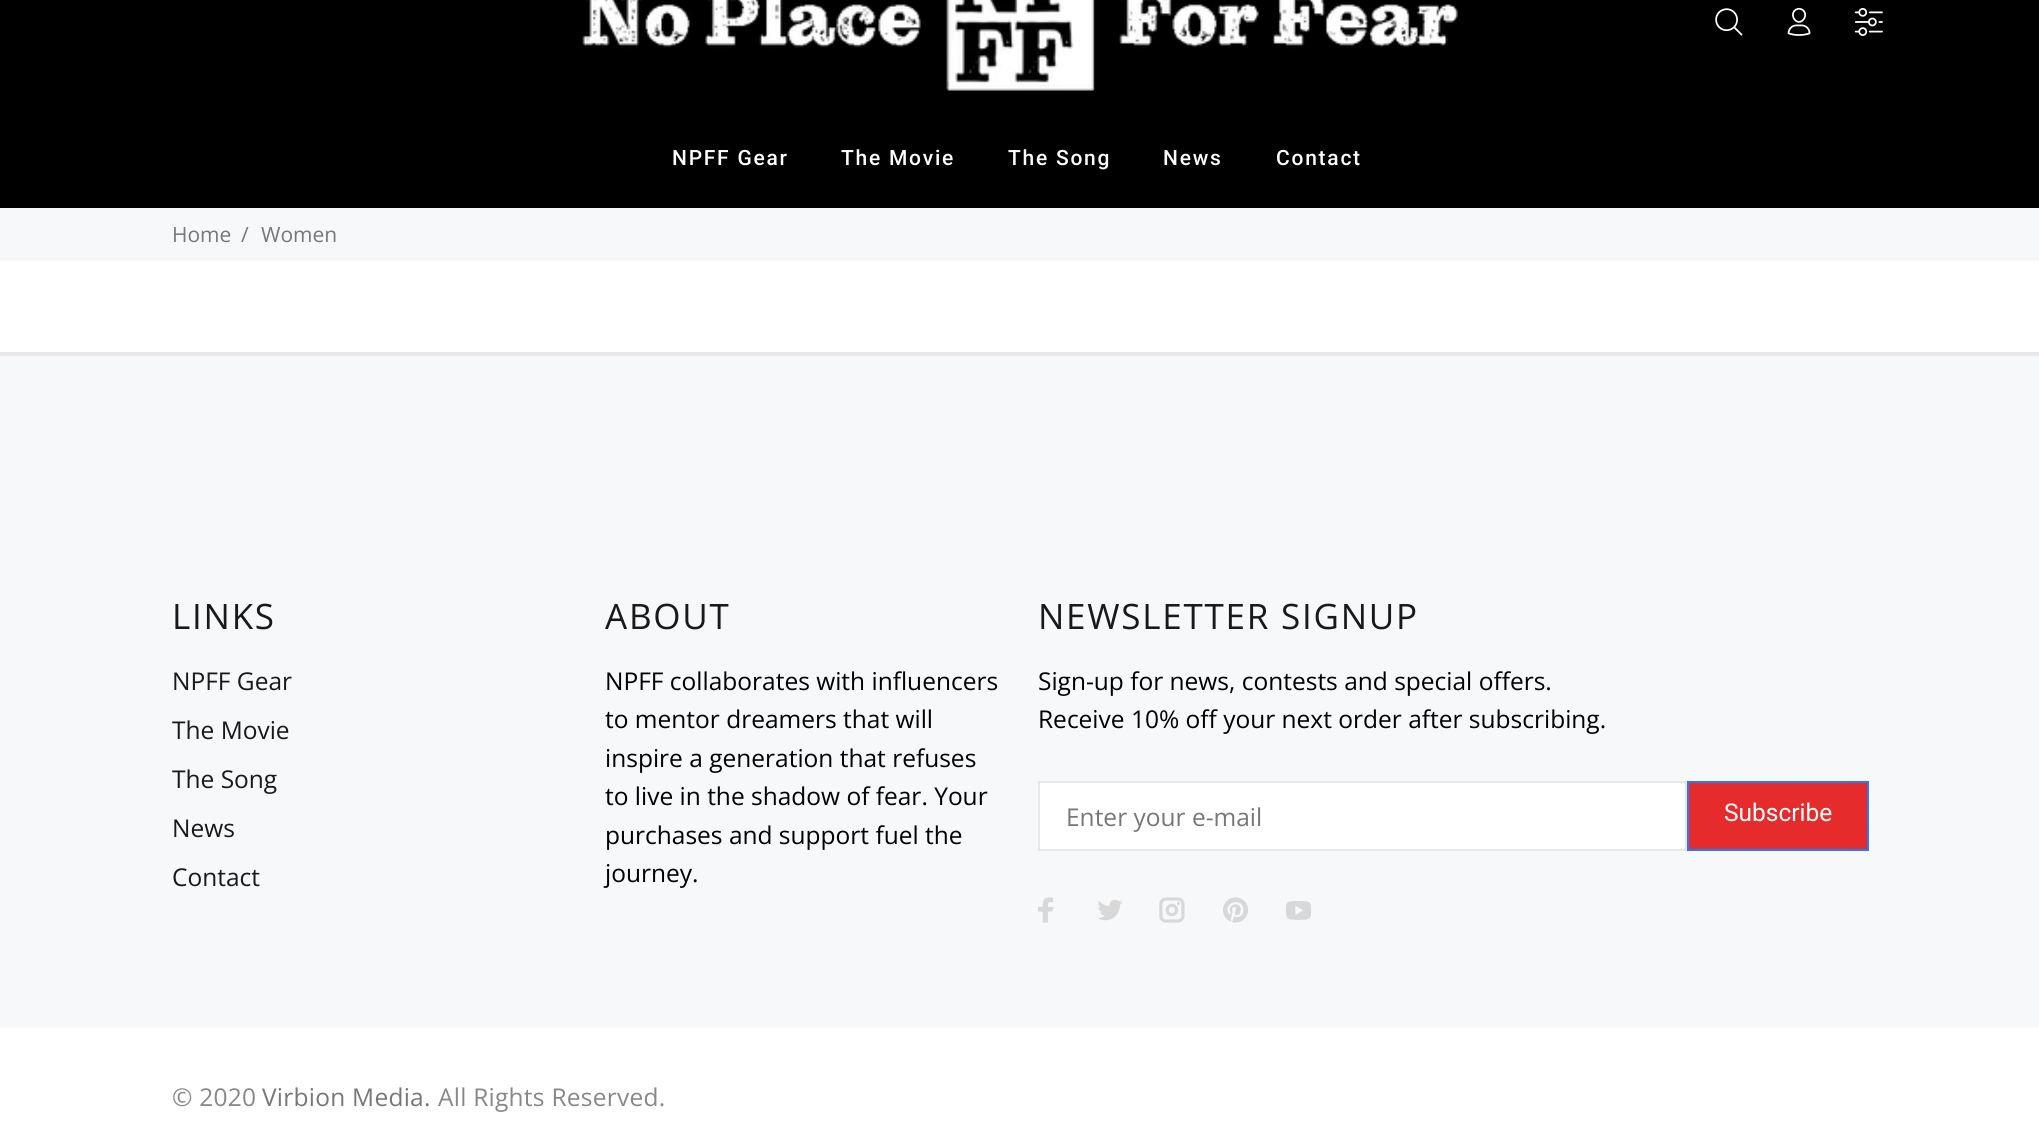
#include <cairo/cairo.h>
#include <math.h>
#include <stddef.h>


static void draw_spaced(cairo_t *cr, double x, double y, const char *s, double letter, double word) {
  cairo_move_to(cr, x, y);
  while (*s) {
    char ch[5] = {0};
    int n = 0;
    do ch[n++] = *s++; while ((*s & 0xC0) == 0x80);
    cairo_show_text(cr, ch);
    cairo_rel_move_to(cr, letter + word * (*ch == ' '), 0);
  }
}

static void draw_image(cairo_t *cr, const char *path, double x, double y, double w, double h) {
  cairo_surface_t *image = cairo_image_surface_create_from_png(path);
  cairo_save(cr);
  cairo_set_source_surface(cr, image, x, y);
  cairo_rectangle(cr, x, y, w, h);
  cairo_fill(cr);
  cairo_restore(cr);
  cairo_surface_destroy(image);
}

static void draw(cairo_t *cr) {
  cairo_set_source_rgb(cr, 1, 1, 1);
  cairo_paint(cr);
  cairo_set_source_rgb(cr, 0, 0, 0);
  cairo_rectangle(cr, 0, 0, 2039, 208);
  cairo_fill(cr);
  draw_image(cr, "images/1.png", 582, 0, 876, 91);
  draw_image(cr, "images/2.png", 1715, 8, 28, 28);
  draw_image(cr, "images/3.png", 1787, 7, 24, 29);
  draw_image(cr, "images/4.png", 1854, 8, 29, 28);
  cairo_set_source_rgb(cr, 247 / 255.0, 248 / 255.0, 250 / 255.0);
  cairo_rectangle(cr, 0, 208, 2039, 53);
  cairo_fill(cr);
  cairo_rectangle(cr, 0, 356, 2039, 671);
  cairo_fill(cr);
  cairo_set_source_rgb(cr, 233 / 255.0, 231 / 255.0, 231 / 255.0);
  cairo_rectangle(cr, 0, 352, 2039, 4);
  cairo_fill(cr);
  cairo_set_source_rgb(cr, 1, 1, 1);
  cairo_rectangle(cr, 1039, 782, 647, 68);
  cairo_fill_preserve(cr);
  cairo_set_source_rgb(cr, 233 / 255.0, 231 / 255.0, 231 / 255.0);
  cairo_stroke(cr);
  cairo_set_source_rgb(cr, 229 / 255.0, 43 / 255.0, 43 / 255.0);
  cairo_rectangle(cr, 1688, 782, 180, 68);
  cairo_fill_preserve(cr);
  cairo_set_source_rgb(cr, 40 / 255.0, 121 / 255.0, 254 / 255.0);
  cairo_stroke(cr);
  draw_image(cr, "images/5.png", 1038, 897, 16, 26);
  draw_image(cr, "images/6.png", 1098, 899, 25, 22);
  draw_image(cr, "images/7.png", 1159, 897, 26, 26);
  draw_image(cr, "images/8.png", 1223, 897, 25, 26);
  draw_image(cr, "images/9.png", 1286, 901, 25, 19);
  cairo_select_font_face(cr, "Roboto Medium", CAIRO_FONT_SLANT_NORMAL, CAIRO_FONT_WEIGHT_NORMAL);
  cairo_set_font_size(cr, 21);
  cairo_set_source_rgb(cr, 1, 1, 1);
  draw_spaced(cr, 672, 165, "NPFF Gear", 1.75, 0);
  draw_spaced(cr, 841, 165, "The Movie", 1.75, 0);
  draw_spaced(cr, 1008, 165, "The Song", 1.75, 0);
  draw_spaced(cr, 1163, 165, "News", 1.75, 0);
  draw_spaced(cr, 1276, 165, "Contact", 1.75, 0);
  cairo_select_font_face(cr, "Open Sans", CAIRO_FONT_SLANT_NORMAL, CAIRO_FONT_WEIGHT_NORMAL);
  cairo_set_source_rgb(cr, 119 / 255.0, 119 / 255.0, 119 / 255.0);
  cairo_move_to(cr, 172, 242);
  cairo_show_text(cr, "Home");
  cairo_move_to(cr, 241, 242);
  cairo_show_text(cr, "/");
  cairo_move_to(cr, 261, 242);
  cairo_show_text(cr, "Women");
  cairo_set_font_size(cr, 35);
  cairo_set_source_rgb(cr, 25 / 255.0, 25 / 255.0, 25 / 255.0);
  draw_spaced(cr, 172, 629, "LINKS", 1.75, 0);
  cairo_set_font_size(cr, 24.5);
  cairo_move_to(cr, 172, 690);
  cairo_show_text(cr, "NPFF Gear");
  cairo_move_to(cr, 172, 739);
  cairo_show_text(cr, "The Movie");
  cairo_move_to(cr, 172, 788);
  cairo_show_text(cr, "The Song");
  cairo_move_to(cr, 172, 837);
  cairo_show_text(cr, "News");
  cairo_move_to(cr, 172, 886);
  cairo_show_text(cr, "Contact");
  cairo_set_font_size(cr, 35);
  draw_spaced(cr, 605, 629, "ABOUT", 1.75, 0);
  cairo_set_font_size(cr, 24.5);
  cairo_set_source_rgb(cr, 0, 0, 0);
  cairo_move_to(cr, 605, 690);
  cairo_show_text(cr, "NPFF collaborates with influencers");
  cairo_move_to(cr, 605, 728);
  cairo_show_text(cr, "to mentor dreamers that will");
  cairo_move_to(cr, 605, 767);
  cairo_show_text(cr, "inspire a generation that refuses");
  cairo_move_to(cr, 605, 805);
  cairo_show_text(cr, "to live in the shadow of fear. Your");
  cairo_move_to(cr, 605, 844);
  cairo_show_text(cr, "purchases and support fuel the");
  cairo_move_to(cr, 605, 882);
  cairo_show_text(cr, "journey.");
  cairo_set_font_size(cr, 35);
  cairo_set_source_rgb(cr, 25 / 255.0, 25 / 255.0, 25 / 255.0);
  draw_spaced(cr, 1038, 629, "NEWSLETTER SIGNUP", 1.75, 0);
  cairo_set_font_size(cr, 24.5);
  cairo_set_source_rgb(cr, 0, 0, 0);
  cairo_move_to(cr, 1038, 690);
  cairo_show_text(cr, "Sign-up for news, contests and special offers.");
  cairo_move_to(cr, 1038, 728);
  cairo_show_text(cr, "Receive 10% off your next order after subscribing.");
  cairo_set_source_rgb(cr, 119 / 255.0, 119 / 255.0, 119 / 255.0);
  cairo_move_to(cr, 1066, 826);
  cairo_show_text(cr, "Enter your e-mail");
  cairo_select_font_face(cr, "Roboto", CAIRO_FONT_SLANT_NORMAL, CAIRO_FONT_WEIGHT_NORMAL);
  cairo_set_source_rgb(cr, 1, 1, 1);
  cairo_move_to(cr, 1724, 821);
  cairo_show_text(cr, "Subscribe");
  cairo_select_font_face(cr, "Open Sans", CAIRO_FONT_SLANT_NORMAL, CAIRO_FONT_WEIGHT_NORMAL);
  cairo_set_source_rgb(cr, 136 / 255.0, 136 / 255.0, 136 / 255.0);
  draw_spaced(cr, 172, 1106, "© 2020", 0.25, 0);
  cairo_set_source_rgb(cr, 119 / 255.0, 119 / 255.0, 119 / 255.0);
  draw_spaced(cr, 262, 1106, "Virbion Media.", 0.25, 0);
  cairo_set_source_rgb(cr, 136 / 255.0, 136 / 255.0, 136 / 255.0);
  draw_spaced(cr, 438, 1106, "All Rights Reserved.", 0.25, 0);
}

int main(void) {
  cairo_surface_t *surface = cairo_image_surface_create(CAIRO_FORMAT_RGB24, 2039, 1145);
  cairo_t *cr = cairo_create(surface);
  cairo_font_options_t *options = cairo_font_options_create();
  cairo_font_options_set_hint_metrics(options, CAIRO_HINT_METRICS_OFF);
  cairo_font_options_set_hint_style(options, CAIRO_HINT_STYLE_NONE);
  cairo_set_font_options(cr, options);
  cairo_set_miter_limit(cr, 4);
  draw(cr);
  cairo_surface_write_to_png(surface, "out.png");
  cairo_font_options_destroy(options);
  cairo_destroy(cr);
  cairo_surface_destroy(surface);
  return 0;
}
